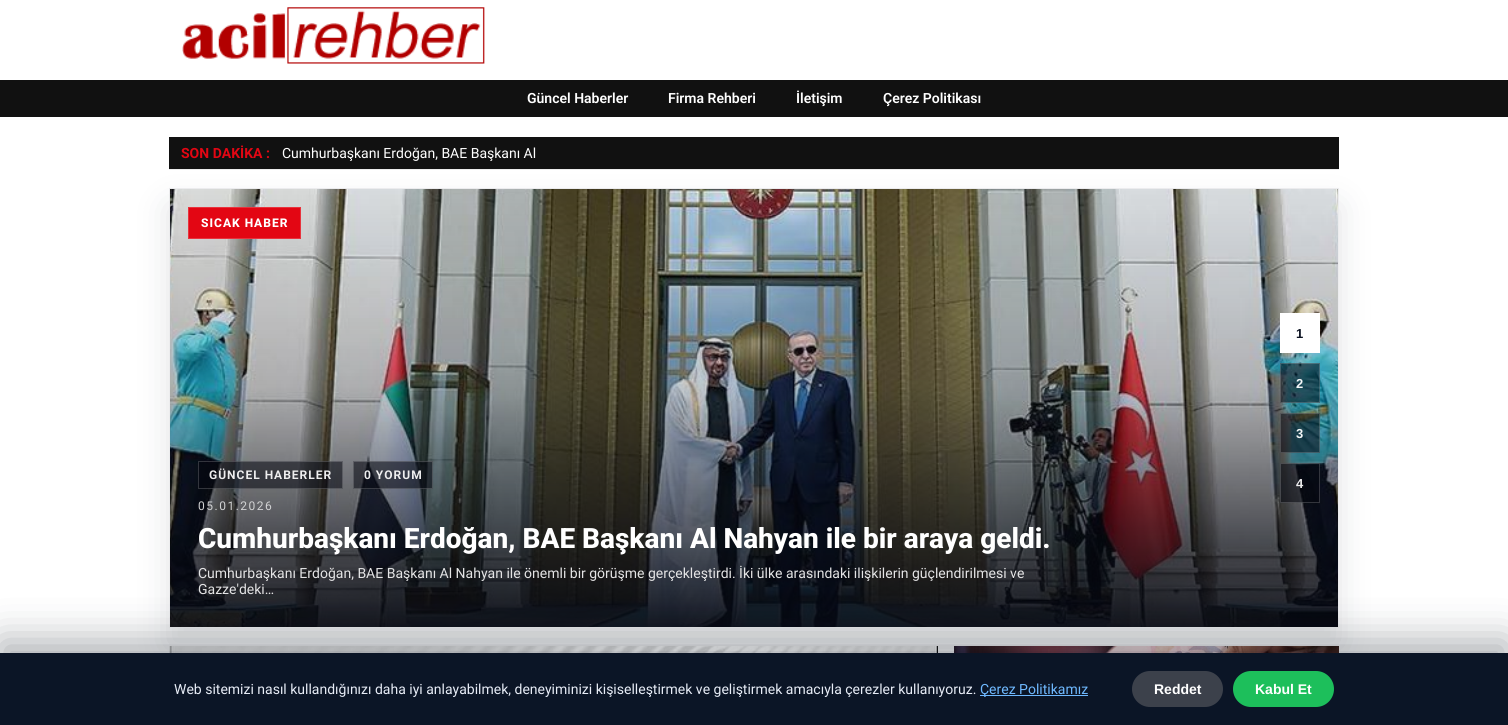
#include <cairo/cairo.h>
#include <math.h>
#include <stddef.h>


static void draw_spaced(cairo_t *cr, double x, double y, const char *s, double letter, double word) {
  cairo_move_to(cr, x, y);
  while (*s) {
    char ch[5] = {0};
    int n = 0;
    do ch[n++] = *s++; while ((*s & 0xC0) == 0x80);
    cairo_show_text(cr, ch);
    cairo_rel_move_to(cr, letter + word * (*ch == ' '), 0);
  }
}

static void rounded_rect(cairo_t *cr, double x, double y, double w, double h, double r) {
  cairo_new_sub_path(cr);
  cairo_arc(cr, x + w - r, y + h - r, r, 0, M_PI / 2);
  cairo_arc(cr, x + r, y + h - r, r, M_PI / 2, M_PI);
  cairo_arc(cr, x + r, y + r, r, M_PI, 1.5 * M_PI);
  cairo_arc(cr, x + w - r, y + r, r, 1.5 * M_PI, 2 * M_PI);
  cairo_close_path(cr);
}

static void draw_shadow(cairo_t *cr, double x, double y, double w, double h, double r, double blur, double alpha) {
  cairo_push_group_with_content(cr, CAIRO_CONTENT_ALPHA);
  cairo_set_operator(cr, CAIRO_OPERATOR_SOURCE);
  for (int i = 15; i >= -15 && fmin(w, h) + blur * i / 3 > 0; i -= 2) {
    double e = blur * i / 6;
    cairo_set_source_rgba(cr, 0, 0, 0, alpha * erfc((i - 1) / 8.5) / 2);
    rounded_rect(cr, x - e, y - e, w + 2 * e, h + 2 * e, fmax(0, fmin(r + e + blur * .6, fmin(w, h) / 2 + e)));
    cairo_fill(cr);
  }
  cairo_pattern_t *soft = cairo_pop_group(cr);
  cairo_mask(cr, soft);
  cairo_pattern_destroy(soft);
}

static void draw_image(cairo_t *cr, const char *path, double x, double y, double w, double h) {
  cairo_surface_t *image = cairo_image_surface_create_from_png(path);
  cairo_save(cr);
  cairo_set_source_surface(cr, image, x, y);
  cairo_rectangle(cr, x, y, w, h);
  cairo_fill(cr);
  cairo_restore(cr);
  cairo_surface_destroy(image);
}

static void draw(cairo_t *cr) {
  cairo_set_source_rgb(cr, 1, 1, 1);
  cairo_paint(cr);
  draw_image(cr, "images/1.png", 182, 7, 303, 57);
  cairo_set_source_rgb(cr, 17 / 255.0, 17 / 255.0, 17 / 255.0);
  cairo_rectangle(cr, 0, 80, 1508, 37);
  cairo_fill(cr);
  cairo_set_source_rgb(cr, 237 / 255.0, 237 / 255.0, 237 / 255.0);
  cairo_rectangle(cr, 169, 169, 1170, 1);
  cairo_fill(cr);
  cairo_set_source_rgb(cr, 17 / 255.0, 17 / 255.0, 17 / 255.0);
  cairo_rectangle(cr, 169, 137, 1170, 32);
  cairo_fill(cr);
  cairo_set_source_rgb(cr, 16 / 255.0, 24 / 255.0, 40 / 255.0);
  draw_shadow(cr, 169, 206, 1170, 440, 0, 17.5, 0.12);
  cairo_rectangle(cr, 169.5, 188.5, 1169, 439);
  cairo_set_source_rgb(cr, 236 / 255.0, 236 / 255.0, 238 / 255.0);
  cairo_set_line_width(cr, 1);
  cairo_stroke(cr);
  draw_image(cr, "images/2.png", 170, 189, 1168, 438);
  cairo_set_source_rgb(cr, 227 / 255.0, 6 / 255.0, 19 / 255.0);
  cairo_rectangle(cr, 188.5, 207.5, 112, 31);
  cairo_fill_preserve(cr);
  cairo_set_source_rgb(cr, 232 / 255.0, 51 / 255.0, 61 / 255.0);
  cairo_stroke(cr);
  cairo_set_source_rgba(cr, 5 / 255.0, 7 / 255.0, 16 / 255.0, 0.55);
  cairo_rectangle(cr, 198, 461, 145, 28);
  cairo_fill(cr);
  cairo_rectangle(cr, 198.5, 461.5, 144, 27);
  cairo_set_source_rgba(cr, 1, 1, 1, 0.18);
  cairo_stroke(cr);
  cairo_set_source_rgba(cr, 5 / 255.0, 7 / 255.0, 16 / 255.0, 0.55);
  cairo_rectangle(cr, 353, 461, 80, 28);
  cairo_fill(cr);
  cairo_rectangle(cr, 353.5, 461.5, 79, 27);
  cairo_set_source_rgba(cr, 1, 1, 1, 0.18);
  cairo_stroke(cr);
  cairo_set_source_rgb(cr, 1, 1, 1);
  cairo_rectangle(cr, 1280, 313, 40, 40);
  cairo_fill(cr);
  cairo_set_source_rgba(cr, 5 / 255.0, 7 / 255.0, 16 / 255.0, 0.55);
  cairo_rectangle(cr, 1280, 363, 40, 40);
  cairo_fill(cr);
  cairo_rectangle(cr, 1280.5, 363.5, 39, 39);
  cairo_set_source_rgba(cr, 1, 1, 1, 0.18);
  cairo_stroke(cr);
  cairo_set_source_rgba(cr, 5 / 255.0, 7 / 255.0, 16 / 255.0, 0.55);
  cairo_rectangle(cr, 1280, 413, 40, 40);
  cairo_fill(cr);
  cairo_rectangle(cr, 1280.5, 413.5, 39, 39);
  cairo_set_source_rgba(cr, 1, 1, 1, 0.18);
  cairo_stroke(cr);
  cairo_set_source_rgba(cr, 5 / 255.0, 7 / 255.0, 16 / 255.0, 0.55);
  cairo_rectangle(cr, 1280, 463, 40, 40);
  cairo_fill(cr);
  cairo_rectangle(cr, 1280.5, 463.5, 39, 39);
  cairo_set_source_rgba(cr, 1, 1, 1, 0.18);
  cairo_stroke(cr);
  draw_image(cr, "images/3.png", 169, 646, 769, 7);
  draw_image(cr, "images/4.png", 954, 646, 385, 7);
  cairo_set_source_rgb(cr, 12 / 255.0, 21 / 255.0, 34 / 255.0);
  draw_shadow(cr, 0, 641, 1508, 72, 0, 20, 0.35);
  cairo_set_source_rgb(cr, 11 / 255.0, 21 / 255.0, 38 / 255.0);
  cairo_rectangle(cr, 0, 653, 1508, 72);
  cairo_fill(cr);
  cairo_set_source_rgb(cr, 111 / 255.0, 185 / 255.0, 1);
  cairo_rectangle(cr, 980, 695, 108, 1);
  cairo_fill(cr);
  cairo_set_source_rgb(cr, 60 / 255.0, 65 / 255.0, 75 / 255.0);
  rounded_rect(cr, 1132, 671, 91, 36, 18);
  cairo_fill(cr);
  cairo_set_source_rgb(cr, 29 / 255.0, 191 / 255.0, 91 / 255.0);
  rounded_rect(cr, 1233, 671, 101, 36, 18);
  cairo_fill(cr);
  cairo_select_font_face(cr, "Roboto SemiBold", CAIRO_FONT_SLANT_NORMAL, CAIRO_FONT_WEIGHT_NORMAL);
  cairo_set_font_size(cr, 14);
  cairo_set_source_rgb(cr, 1, 1, 1);
  cairo_move_to(cr, 527, 103);
  cairo_show_text(cr, "Güncel Haberler");
  cairo_move_to(cr, 668, 103);
  cairo_show_text(cr, "Firma Rehberi");
  cairo_move_to(cr, 796, 103);
  cairo_show_text(cr, "İletişim");
  cairo_move_to(cr, 883, 103);
  cairo_show_text(cr, "Çerez Politikası");
  cairo_select_font_face(cr, "Roboto", CAIRO_FONT_SLANT_NORMAL, CAIRO_FONT_WEIGHT_BOLD);
  cairo_set_source_rgb(cr, 227 / 255.0, 6 / 255.0, 19 / 255.0);
  cairo_move_to(cr, 181, 158);
  cairo_show_text(cr, "SON DAKİKA :");
  cairo_select_font_face(cr, "Roboto", CAIRO_FONT_SLANT_NORMAL, CAIRO_FONT_WEIGHT_NORMAL);
  cairo_set_source_rgb(cr, 1, 1, 1);
  cairo_move_to(cr, 282, 158);
  cairo_show_text(cr, "Cumhurbaşkanı Erdoğan, BAE Başkanı Al");
  cairo_select_font_face(cr, "Roboto ExtraBold", CAIRO_FONT_SLANT_NORMAL, CAIRO_FONT_WEIGHT_NORMAL);
  cairo_set_font_size(cr, 12);
  draw_spaced(cr, 201, 227, "SICAK HABER", 1, 0);
  cairo_select_font_face(cr, "Roboto", CAIRO_FONT_SLANT_NORMAL, CAIRO_FONT_WEIGHT_BOLD);
  cairo_set_source_rgb(cr, 238 / 255.0, 238 / 255.0, 239 / 255.0);
  draw_spaced(cr, 209, 479, "GÜNCEL HABERLER", 1, 0);
  draw_spaced(cr, 364, 479, "0 YORUM", 1, 0);
  cairo_select_font_face(cr, "Roboto", CAIRO_FONT_SLANT_NORMAL, CAIRO_FONT_WEIGHT_NORMAL);
  cairo_set_source_rgb(cr, 209 / 255.0, 210 / 255.0, 211 / 255.0);
  draw_spaced(cr, 198, 510, "05.01.2026", 1.5, 0);
  cairo_select_font_face(cr, "Roboto ExtraBold", CAIRO_FONT_SLANT_NORMAL, CAIRO_FONT_WEIGHT_NORMAL);
  cairo_set_font_size(cr, 28);
  cairo_set_source_rgb(cr, 1, 1, 1);
  cairo_move_to(cr, 198, 548);
  cairo_show_text(cr, "Cumhurbaşkanı Erdoğan, BAE Başkanı Al Nahyan ile bir araya geldi.");
  cairo_select_font_face(cr, "Roboto", CAIRO_FONT_SLANT_NORMAL, CAIRO_FONT_WEIGHT_NORMAL);
  cairo_set_font_size(cr, 14);
  cairo_set_source_rgb(cr, 228 / 255.0, 228 / 255.0, 229 / 255.0);
  cairo_move_to(cr, 198, 578);
  cairo_show_text(cr, "Cumhurbaşkanı Erdoğan, BAE Başkanı Al Nahyan ile önemli bir görüşme gerçekleştirdi. İki ülke arasındaki ilişkilerin güçlendirilmesi ve");
  cairo_move_to(cr, 198, 594);
  cairo_show_text(cr, "Gazze'deki…");
  cairo_select_font_face(cr, "Liberation Sans", CAIRO_FONT_SLANT_NORMAL, CAIRO_FONT_WEIGHT_BOLD);
  cairo_set_font_size(cr, 13);
  cairo_set_source_rgb(cr, 11 / 255.0, 17 / 255.0, 32 / 255.0);
  cairo_move_to(cr, 1296, 338);
  cairo_show_text(cr, "1");
  cairo_set_source_rgb(cr, 244 / 255.0, 246 / 255.0, 247 / 255.0);
  cairo_move_to(cr, 1296, 388);
  cairo_show_text(cr, "2");
  cairo_move_to(cr, 1296, 438);
  cairo_show_text(cr, "3");
  cairo_set_source_rgb(cr, 238 / 255.0, 238 / 255.0, 239 / 255.0);
  cairo_move_to(cr, 1296, 488);
  cairo_show_text(cr, "4");
  cairo_select_font_face(cr, "Roboto", CAIRO_FONT_SLANT_NORMAL, CAIRO_FONT_WEIGHT_NORMAL);
  cairo_set_font_size(cr, 14);
  cairo_set_source_rgb(cr, 231 / 255.0, 236 / 255.0, 246 / 255.0);
  cairo_move_to(cr, 174, 694);
  cairo_show_text(cr, "Web sitemizi nasıl kullandığınızı daha iyi anlayabilmek, deneyiminizi kişiselleştirmek ve geliştirmek amacıyla çerezler kullanıyoruz.");
  cairo_set_source_rgb(cr, 111 / 255.0, 185 / 255.0, 1);
  cairo_move_to(cr, 980, 694);
  cairo_show_text(cr, "Çerez Politikamız");
  cairo_select_font_face(cr, "Liberation Sans", CAIRO_FONT_SLANT_NORMAL, CAIRO_FONT_WEIGHT_BOLD);
  cairo_set_source_rgb(cr, 1, 1, 1);
  cairo_move_to(cr, 1154, 694);
  cairo_show_text(cr, "Reddet");
  cairo_move_to(cr, 1255, 694);
  cairo_show_text(cr, "Kabul Et");
}

int main(void) {
  cairo_surface_t *surface = cairo_image_surface_create(CAIRO_FORMAT_RGB24, 1508, 725);
  cairo_t *cr = cairo_create(surface);
  cairo_font_options_t *options = cairo_font_options_create();
  cairo_font_options_set_hint_metrics(options, CAIRO_HINT_METRICS_OFF);
  cairo_font_options_set_hint_style(options, CAIRO_HINT_STYLE_NONE);
  cairo_set_font_options(cr, options);
  cairo_set_miter_limit(cr, 4);
  draw(cr);
  cairo_surface_write_to_png(surface, "out.png");
  cairo_font_options_destroy(options);
  cairo_destroy(cr);
  cairo_surface_destroy(surface);
  return 0;
}
